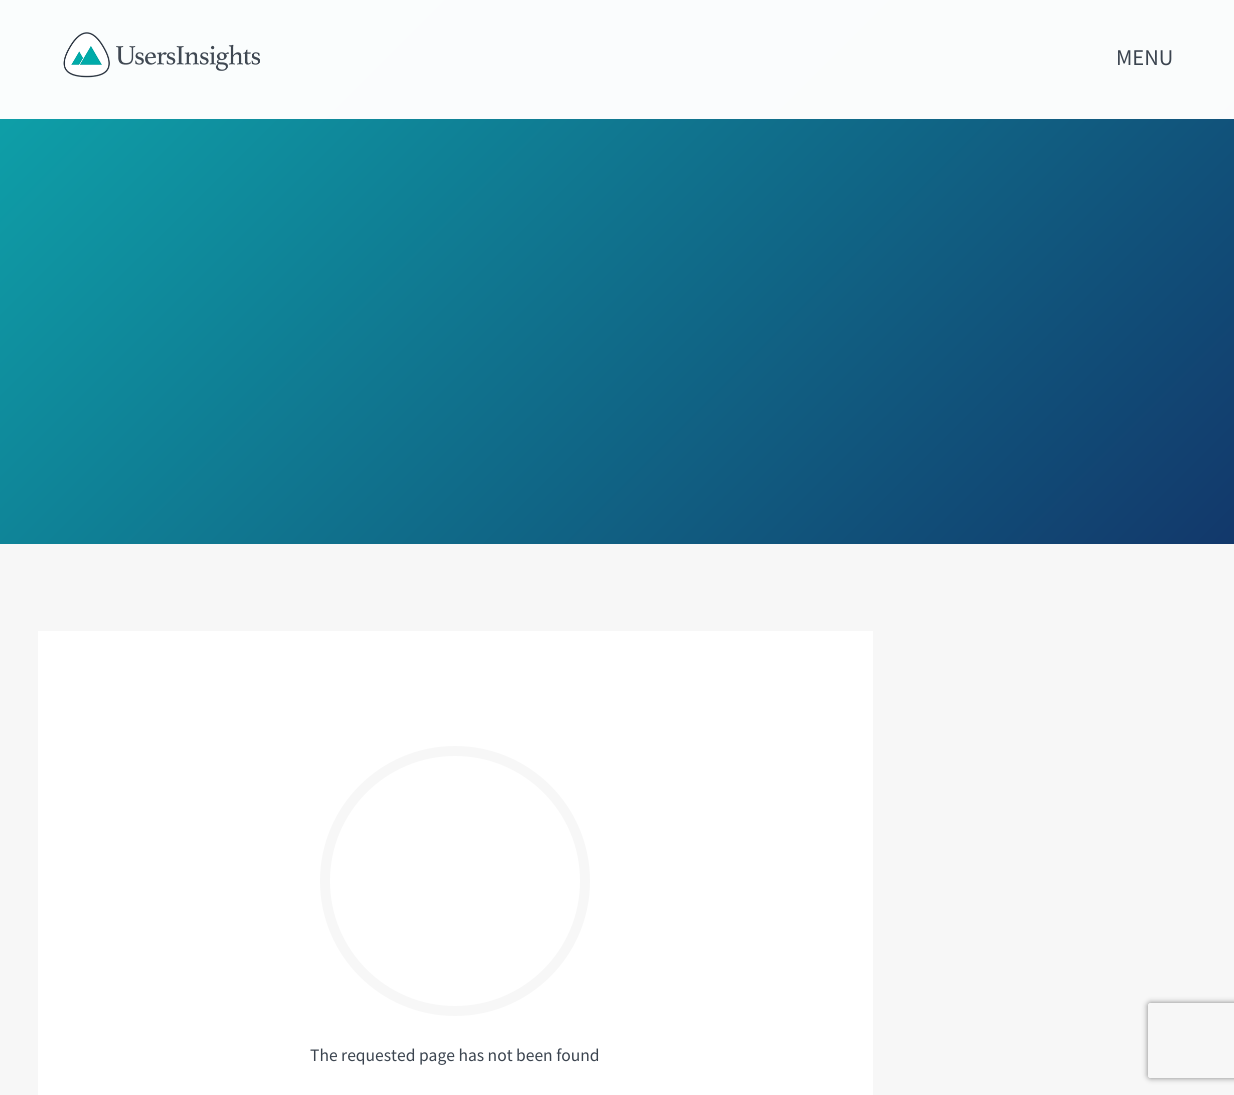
#include <cairo/cairo.h>
#include <math.h>
#include <stddef.h>


static void rounded_rect(cairo_t *cr, double x, double y, double w, double h, double r) {
  cairo_new_sub_path(cr);
  cairo_arc(cr, x + w - r, y + h - r, r, 0, M_PI / 2);
  cairo_arc(cr, x + r, y + h - r, r, M_PI / 2, M_PI);
  cairo_arc(cr, x + r, y + r, r, M_PI, 1.5 * M_PI);
  cairo_arc(cr, x + w - r, y + r, r, 1.5 * M_PI, 2 * M_PI);
  cairo_close_path(cr);
}

static void draw_shadow(cairo_t *cr, double x, double y, double w, double h, double r, double blur, double alpha) {
  cairo_push_group_with_content(cr, CAIRO_CONTENT_ALPHA);
  cairo_set_operator(cr, CAIRO_OPERATOR_SOURCE);
  for (int i = 15; i >= -15 && fmin(w, h) + blur * i / 3 > 0; i -= 2) {
    double e = blur * i / 6;
    cairo_set_source_rgba(cr, 0, 0, 0, alpha * erfc((i - 1) / 8.5) / 2);
    rounded_rect(cr, x - e, y - e, w + 2 * e, h + 2 * e, fmax(0, fmin(r + e + blur * .6, fmin(w, h) / 2 + e)));
    cairo_fill(cr);
  }
  cairo_pattern_t *soft = cairo_pop_group(cr);
  cairo_mask(cr, soft);
  cairo_pattern_destroy(soft);
}

static void draw_image(cairo_t *cr, const char *path, double x, double y, double w, double h) {
  cairo_surface_t *image = cairo_image_surface_create_from_png(path);
  cairo_save(cr);
  cairo_set_source_surface(cr, image, x, y);
  cairo_rectangle(cr, x, y, w, h);
  cairo_fill(cr);
  cairo_restore(cr);
  cairo_surface_destroy(image);
}

static void draw(cairo_t *cr) {
  cairo_pattern_t *gradient;
  cairo_set_source_rgb(cr, 247 / 255.0, 247 / 255.0, 247 / 255.0);
  cairo_paint(cr);
  gradient = cairo_pattern_create_linear(173, -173, 1062, 717);
  cairo_pattern_add_color_stop_rgba(gradient, 0, 14 / 255.0, 166 / 255.0, 172 / 255.0, 1);
  cairo_pattern_add_color_stop_rgba(gradient, 1, 18 / 255.0, 56 / 255.0, 107 / 255.0, 1);
  cairo_set_source(cr, gradient);
  cairo_pattern_destroy(gradient);
  cairo_rectangle(cr, 0, 119, 1234, 425);
  cairo_fill(cr);
  gradient = cairo_pattern_create_linear(173, -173, 1062, 717);
  cairo_pattern_add_color_stop_rgba(gradient, 0, 250 / 255.0, 253 / 255.0, 253 / 255.0, 1);
  cairo_pattern_add_color_stop_rgba(gradient, 1, 250 / 255.0, 251 / 255.0, 252 / 255.0, 1);
  cairo_set_source(cr, gradient);
  cairo_pattern_destroy(gradient);
  cairo_rectangle(cr, 0, 0, 1234, 119);
  cairo_fill(cr);
  draw_image(cr, "images/1.png", 63, 32, 197, 46);
  cairo_set_source_rgb(cr, 1, 1, 1);
  cairo_rectangle(cr, 38, 631, 835, 464);
  cairo_fill(cr);
  cairo_arc(cr, 455, 881, 130, 0, 2 * M_PI);
  cairo_set_source_rgb(cr, 247 / 255.0, 247 / 255.0, 247 / 255.0);
  cairo_set_line_width(cr, 10);
  cairo_stroke(cr);
  cairo_save(cr);
  cairo_set_fill_rule(cr, CAIRO_FILL_RULE_EVEN_ODD);
  cairo_new_path(cr);
  cairo_move_to(cr, 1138, 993);
  cairo_line_to(cr, 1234, 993);
  cairo_line_to(cr, 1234, 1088);
  cairo_line_to(cr, 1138, 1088);
  cairo_close_path(cr);
  cairo_move_to(cr, 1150.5, 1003);
  cairo_line_to(cr, 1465.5, 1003);
  cairo_curve_to(cr, 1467, 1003, 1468, 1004, 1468, 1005.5);
  cairo_line_to(cr, 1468, 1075.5);
  cairo_curve_to(cr, 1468, 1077, 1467, 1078, 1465.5, 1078);
  cairo_line_to(cr, 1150.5, 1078);
  cairo_curve_to(cr, 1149, 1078, 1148, 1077, 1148, 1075.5);
  cairo_line_to(cr, 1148, 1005.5);
  cairo_curve_to(cr, 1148, 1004, 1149, 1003, 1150.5, 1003);
  cairo_close_path(cr);
  cairo_clip(cr);
  cairo_set_source_rgb(cr, 128 / 255.0, 128 / 255.0, 128 / 255.0);
  draw_shadow(cr, 1148, 1003, 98, 75, 2.5, 3, 1);
  cairo_restore(cr);
  cairo_select_font_face(cr, "Source Sans Pro", CAIRO_FONT_SLANT_NORMAL, CAIRO_FONT_WEIGHT_NORMAL);
  cairo_set_font_size(cr, 22.5);
  cairo_set_source_rgb(cr, 59 / 255.0, 68 / 255.0, 79 / 255.0);
  cairo_move_to(cr, 1116, 65);
  cairo_show_text(cr, "MENU");
  cairo_set_font_size(cr, 17.5);
  cairo_move_to(cr, 310, 1061);
  cairo_show_text(cr, "The requested page has not been found");
}

int main(void) {
  cairo_surface_t *surface = cairo_image_surface_create(CAIRO_FORMAT_RGB24, 1234, 1095);
  cairo_t *cr = cairo_create(surface);
  cairo_font_options_t *options = cairo_font_options_create();
  cairo_font_options_set_hint_metrics(options, CAIRO_HINT_METRICS_OFF);
  cairo_font_options_set_hint_style(options, CAIRO_HINT_STYLE_NONE);
  cairo_set_font_options(cr, options);
  cairo_set_miter_limit(cr, 4);
  draw(cr);
  cairo_surface_write_to_png(surface, "out.png");
  cairo_font_options_destroy(options);
  cairo_destroy(cr);
  cairo_surface_destroy(surface);
  return 0;
}
